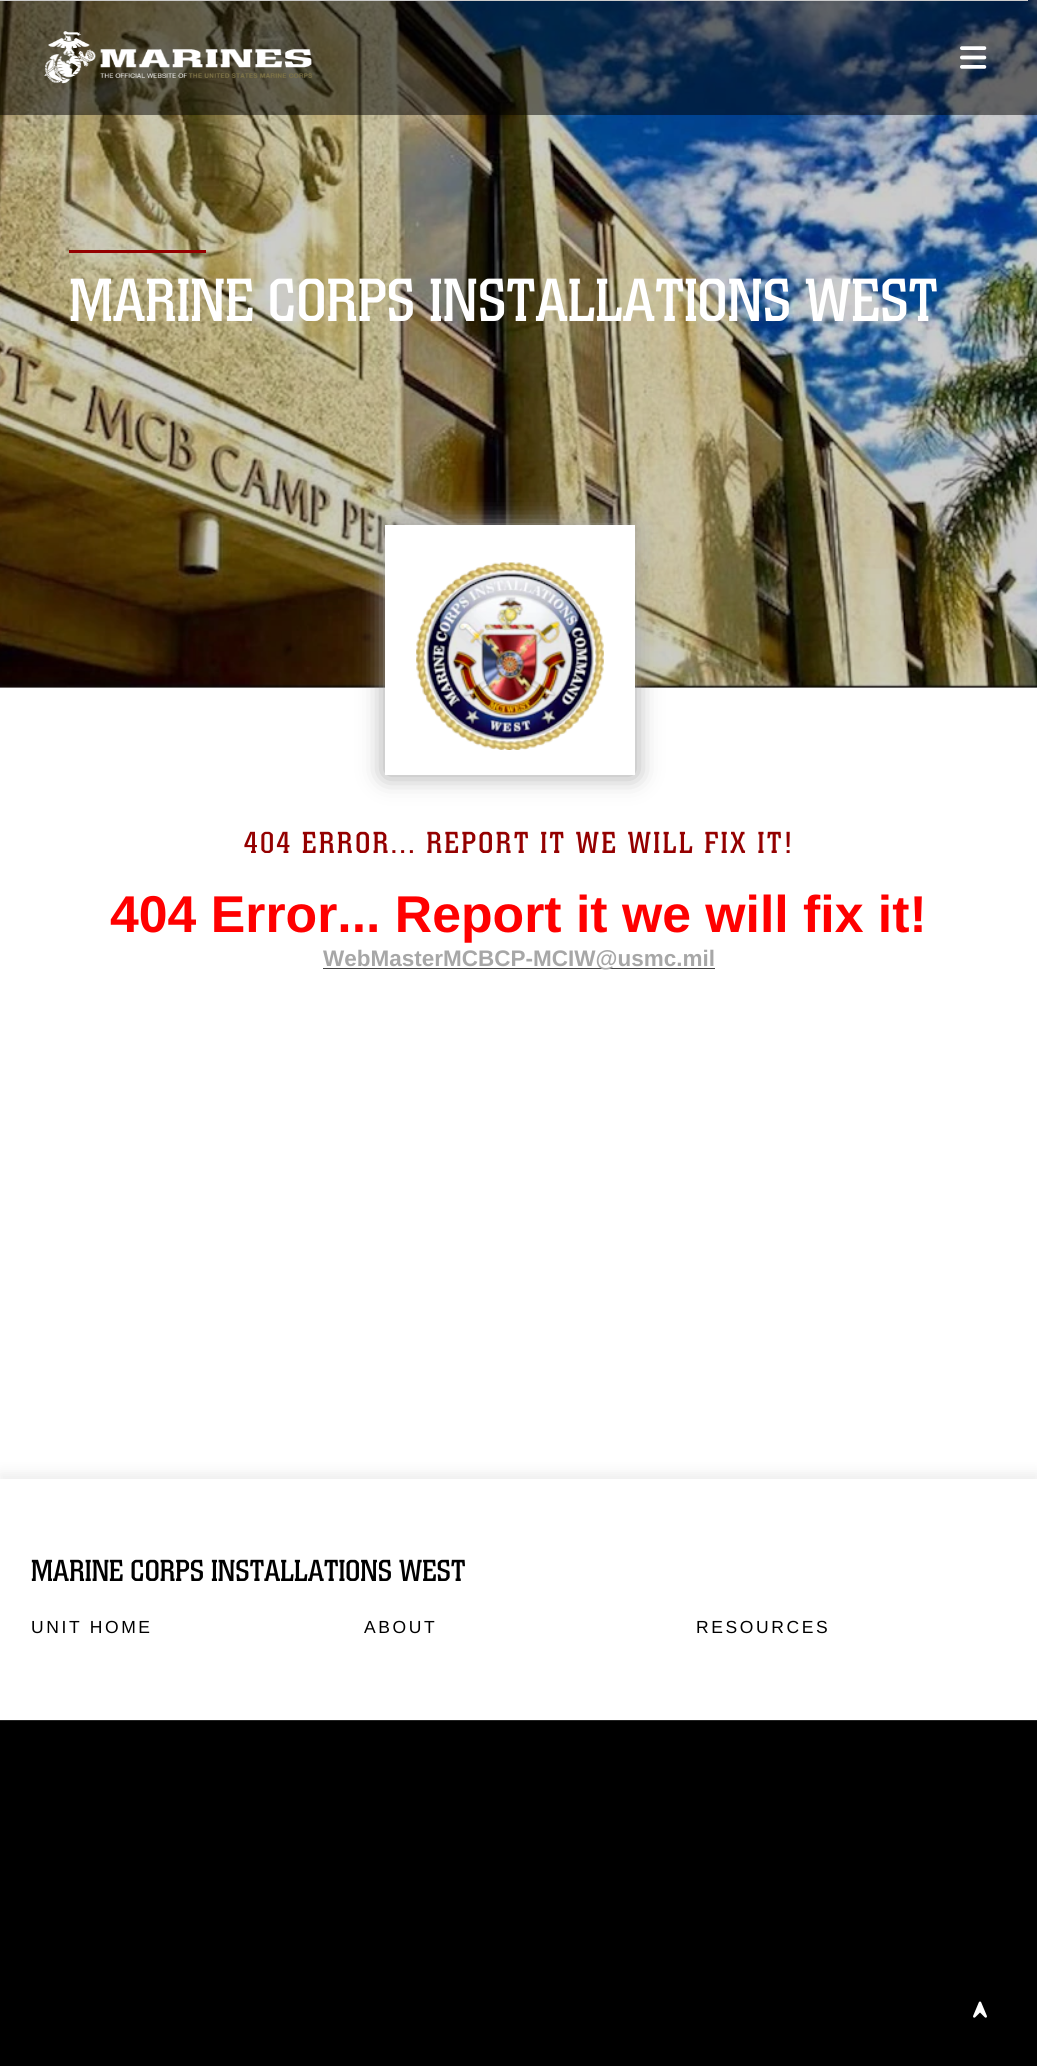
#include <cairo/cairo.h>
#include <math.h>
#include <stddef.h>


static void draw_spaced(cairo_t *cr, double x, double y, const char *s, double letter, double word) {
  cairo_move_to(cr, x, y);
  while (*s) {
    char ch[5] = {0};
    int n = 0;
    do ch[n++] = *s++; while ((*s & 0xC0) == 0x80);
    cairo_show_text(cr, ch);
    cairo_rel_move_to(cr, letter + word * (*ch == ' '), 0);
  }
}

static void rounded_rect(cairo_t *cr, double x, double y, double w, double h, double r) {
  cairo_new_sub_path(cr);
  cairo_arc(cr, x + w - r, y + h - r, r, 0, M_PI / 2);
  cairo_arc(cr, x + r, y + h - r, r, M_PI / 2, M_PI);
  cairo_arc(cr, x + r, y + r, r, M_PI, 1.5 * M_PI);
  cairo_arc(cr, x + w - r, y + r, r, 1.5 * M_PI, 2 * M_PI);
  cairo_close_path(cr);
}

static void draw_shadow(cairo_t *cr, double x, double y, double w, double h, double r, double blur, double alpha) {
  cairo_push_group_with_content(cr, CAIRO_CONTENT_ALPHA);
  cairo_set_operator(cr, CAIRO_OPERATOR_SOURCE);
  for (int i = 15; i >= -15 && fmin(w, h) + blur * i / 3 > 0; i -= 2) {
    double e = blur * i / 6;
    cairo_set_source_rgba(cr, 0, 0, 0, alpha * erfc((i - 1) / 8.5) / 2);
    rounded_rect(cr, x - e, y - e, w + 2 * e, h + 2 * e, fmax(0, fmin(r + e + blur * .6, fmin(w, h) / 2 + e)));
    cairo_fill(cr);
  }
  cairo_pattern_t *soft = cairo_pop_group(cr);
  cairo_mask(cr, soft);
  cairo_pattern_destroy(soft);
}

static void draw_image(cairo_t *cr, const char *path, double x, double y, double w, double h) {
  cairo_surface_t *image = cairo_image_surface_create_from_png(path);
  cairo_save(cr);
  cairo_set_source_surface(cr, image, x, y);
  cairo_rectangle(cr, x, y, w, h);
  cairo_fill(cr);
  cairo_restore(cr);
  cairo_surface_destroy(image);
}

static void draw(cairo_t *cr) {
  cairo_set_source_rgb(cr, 1, 1, 1);
  cairo_paint(cr);
  cairo_set_source_rgb(cr, 204 / 255.0, 204 / 255.0, 204 / 255.0);
  cairo_rectangle(cr, 0, 687, 1037, 1);
  cairo_fill(cr);
  draw_image(cr, "images/3.png", 0, 0, 1037, 688);
  cairo_set_source_rgba(cr, 0, 0, 0, 0.5);
  cairo_rectangle(cr, 0, 0, 1037, 115);
  cairo_fill(cr);
  draw_image(cr, "images/1.png", 44, 31, 269, 53);
  draw_image(cr, "images/2.png", 960, 46, 27, 23);
  cairo_set_source_rgb(cr, 204 / 255.0, 204 / 255.0, 204 / 255.0);
  cairo_rectangle(cr, 0, 0, 1028, 1);
  cairo_fill(cr);
  cairo_set_source_rgb(cr, 148 / 255.0, 0, 0);
  cairo_rectangle(cr, 69, 250, 137, 3);
  cairo_fill(cr);
  cairo_set_source_rgb(cr, 161 / 255.0, 161 / 255.0, 161 / 255.0);
  draw_shadow(cr, 385, 525, 250, 250, 0, 12.5, 1);
  cairo_set_source_rgb(cr, 1, 1, 1);
  cairo_rectangle(cr, 385, 525, 250, 250);
  cairo_fill(cr);
  draw_image(cr, "images/4.png", 416, 562, 188, 188);
  cairo_set_source_rgb(cr, 68 / 255.0, 68 / 255.0, 68 / 255.0);
  cairo_rectangle(cr, 323, 968, 392, 1);
  cairo_fill(cr);
  cairo_save(cr);
  cairo_rectangle(cr, 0, 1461, 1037, 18);
  cairo_clip(cr);
  cairo_set_source_rgb(cr, 238 / 255.0, 238 / 255.0, 238 / 255.0);
  draw_shadow(cr, 0, 1473, 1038, 241, 0, 6, 1);
  cairo_restore(cr);
  cairo_set_source_rgb(cr, 0, 0, 0);
  cairo_rectangle(cr, 0, 1721, 1037, 345);
  cairo_fill(cr);
  cairo_set_source_rgb(cr, 35 / 255.0, 35 / 255.0, 35 / 255.0);
  cairo_rectangle(cr, 0, 1720, 1037, 1);
  cairo_fill(cr);
  draw_image(cr, "images/5.png", 973, 2001, 14, 17);
  cairo_select_font_face(cr, "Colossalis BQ", CAIRO_FONT_SLANT_NORMAL, CAIRO_FONT_WEIGHT_NORMAL);
  cairo_set_font_size(cr, 60);
  cairo_set_source_rgb(cr, 1, 1, 1);
  cairo_move_to(cr, 69, 321);
  cairo_show_text(cr, "MARINE CORPS INSTALLATIONS WEST");
  cairo_set_font_size(cr, 30);
  cairo_set_source_rgb(cr, 148 / 255.0, 0, 0);
  draw_spaced(cr, 244, 853, "404 ERROR... REPORT IT WE WILL FIX IT!", 2.5, 0);
  cairo_select_font_face(cr, "Liberation Sans", CAIRO_FONT_SLANT_NORMAL, CAIRO_FONT_WEIGHT_BOLD);
  cairo_set_font_size(cr, 51.75);
  cairo_set_source_rgb(cr, 1, 0, 0);
  cairo_move_to(cr, 110, 932);
  cairo_show_text(cr, "404 Error... Report it we will fix it!");
  cairo_set_font_size(cr, 22.5);
  cairo_set_source_rgb(cr, 167 / 255.0, 167 / 255.0, 167 / 255.0);
  cairo_move_to(cr, 323, 966);
  cairo_show_text(cr, "WebMasterMCBCP-MCIW@usmc.mil");
  cairo_select_font_face(cr, "Colossalis BQ", CAIRO_FONT_SLANT_NORMAL, CAIRO_FONT_WEIGHT_NORMAL);
  cairo_set_font_size(cr, 30);
  cairo_set_source_rgb(cr, 0, 0, 0);
  cairo_move_to(cr, 31, 1581);
  cairo_show_text(cr, "MARINE CORPS INSTALLATIONS WEST");
  cairo_select_font_face(cr, "Liberation Sans", CAIRO_FONT_SLANT_NORMAL, CAIRO_FONT_WEIGHT_NORMAL);
  cairo_set_font_size(cr, 17.5);
  draw_spaced(cr, 31, 1633, "UNIT HOME", 2.6, 0);
  draw_spaced(cr, 364, 1633, "ABOUT", 2.6, 0);
  draw_spaced(cr, 696, 1633, "RESOURCES", 2.6, 0);
}

int main(void) {
  cairo_surface_t *surface = cairo_image_surface_create(CAIRO_FORMAT_RGB24, 1037, 2066);
  cairo_t *cr = cairo_create(surface);
  cairo_font_options_t *options = cairo_font_options_create();
  cairo_font_options_set_hint_metrics(options, CAIRO_HINT_METRICS_OFF);
  cairo_font_options_set_hint_style(options, CAIRO_HINT_STYLE_NONE);
  cairo_set_font_options(cr, options);
  cairo_set_miter_limit(cr, 4);
  draw(cr);
  cairo_surface_write_to_png(surface, "out.png");
  cairo_font_options_destroy(options);
  cairo_destroy(cr);
  cairo_surface_destroy(surface);
  return 0;
}
